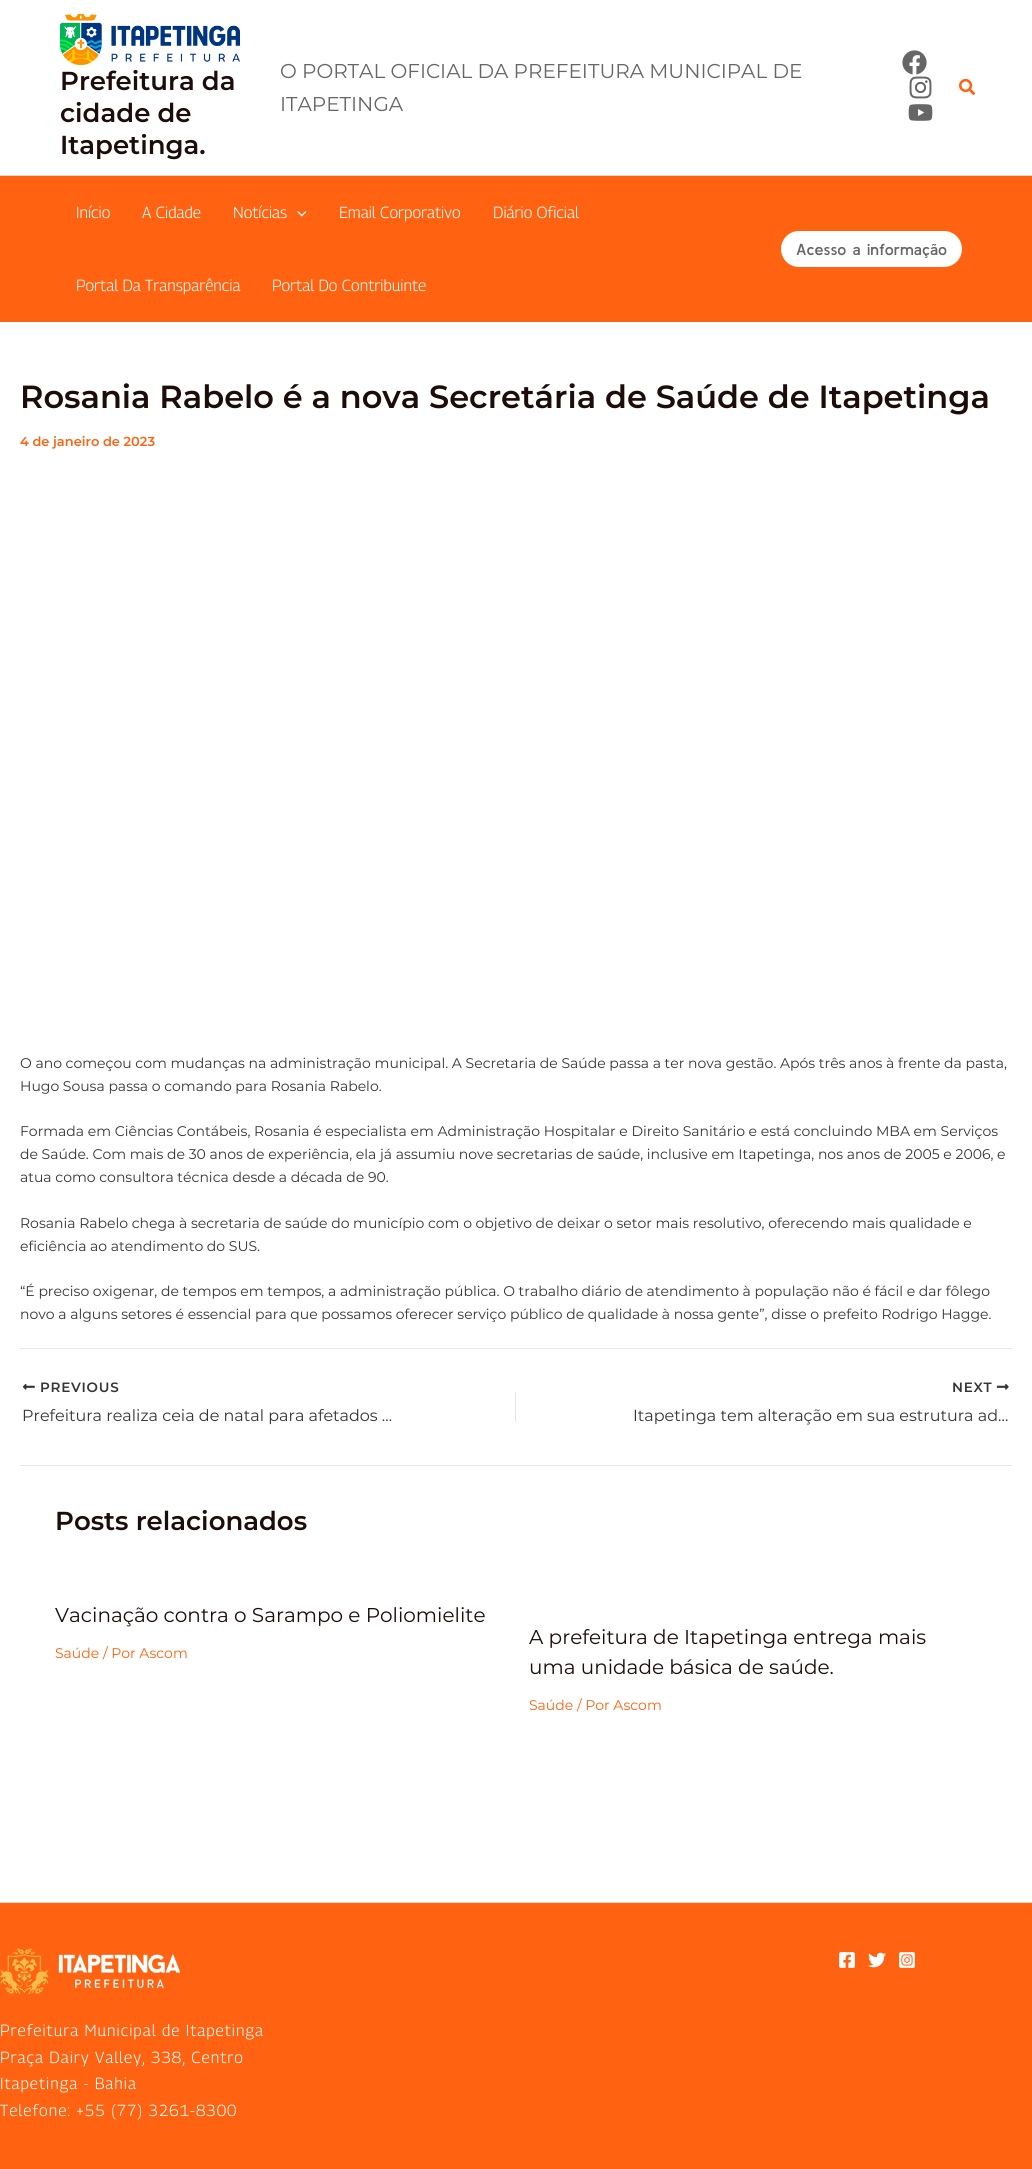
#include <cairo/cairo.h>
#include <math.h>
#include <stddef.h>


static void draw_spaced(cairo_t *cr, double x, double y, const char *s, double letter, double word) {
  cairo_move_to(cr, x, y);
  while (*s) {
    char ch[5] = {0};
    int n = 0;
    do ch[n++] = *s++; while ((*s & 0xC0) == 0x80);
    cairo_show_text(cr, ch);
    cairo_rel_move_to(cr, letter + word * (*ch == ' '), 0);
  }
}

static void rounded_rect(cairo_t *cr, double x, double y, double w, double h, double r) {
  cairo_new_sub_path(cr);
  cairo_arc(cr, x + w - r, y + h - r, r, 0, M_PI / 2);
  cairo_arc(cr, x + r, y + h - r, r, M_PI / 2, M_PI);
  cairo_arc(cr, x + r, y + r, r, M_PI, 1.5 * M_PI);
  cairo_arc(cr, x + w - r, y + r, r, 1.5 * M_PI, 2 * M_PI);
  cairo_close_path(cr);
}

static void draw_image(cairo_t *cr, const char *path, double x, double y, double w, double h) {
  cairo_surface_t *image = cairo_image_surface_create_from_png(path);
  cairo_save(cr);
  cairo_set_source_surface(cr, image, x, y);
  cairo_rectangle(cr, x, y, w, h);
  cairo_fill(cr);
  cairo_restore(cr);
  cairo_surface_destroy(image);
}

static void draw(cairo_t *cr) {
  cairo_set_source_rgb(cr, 1, 1, 1);
  cairo_paint(cr);
  cairo_set_source_rgb(cr, 229 / 255.0, 215 / 255.0, 209 / 255.0);
  cairo_rectangle(cr, 0, 175, 1032, 1);
  cairo_fill(cr);
  draw_image(cr, "images/1.png", 60, 14, 180, 51);
  draw_image(cr, "images/2.png", 902, 50, 25, 25);
  draw_image(cr, "images/3.png", 909, 76, 23, 23);
  draw_image(cr, "images/4.png", 908, 104, 25, 17);
  draw_image(cr, "images/5.png", 959, 78, 16, 17);
  cairo_set_source_rgb(cr, 1, 98 / 255.0, 16 / 255.0);
  cairo_rectangle(cr, 0, 176, 1032, 146);
  cairo_fill(cr);
  draw_image(cr, "images/6.png", 297, 211, 10, 6);
  cairo_set_source_rgb(cr, 1, 1, 1);
  rounded_rect(cr, 781, 231, 181, 36, 18);
  cairo_fill(cr);
  cairo_set_source_rgb(cr, 225 / 255.0, 232 / 255.0, 237 / 255.0);
  cairo_rectangle(cr, 20, 1348, 992, 1);
  cairo_fill(cr);
  draw_image(cr, "images/7.png", 22, 1383, 13, 7);
  cairo_rectangle(cr, 515, 1392, 1, 30);
  cairo_fill(cr);
  draw_image(cr, "images/8.png", 996, 1383, 13, 7);
  cairo_rectangle(cr, 20, 1465, 992, 1);
  cairo_fill(cr);
  cairo_set_source_rgb(cr, 1, 98 / 255.0, 16 / 255.0);
  cairo_rectangle(cr, 0, 1903, 1032, 266);
  cairo_fill(cr);
  cairo_set_source_rgb(cr, 229 / 255.0, 215 / 255.0, 209 / 255.0);
  cairo_rectangle(cr, 0, 1902, 1032, 1);
  cairo_fill(cr);
  draw_image(cr, "images/9.png", 839, 1952, 16, 16);
  draw_image(cr, "images/10.png", 868, 1952, 18, 16);
  draw_image(cr, "images/11.png", 899, 1952, 16, 16);
  draw_image(cr, "images/12.png", 0, 1948, 180, 46);
  cairo_select_font_face(cr, "Montserrat SemiBold", CAIRO_FONT_SLANT_NORMAL, CAIRO_FONT_WEIGHT_NORMAL);
  cairo_set_font_size(cr, 26);
  cairo_set_source_rgb(cr, 28 / 255.0, 13 / 255.0, 10 / 255.0);
  cairo_move_to(cr, 60, 90);
  cairo_show_text(cr, "Prefeitura da");
  cairo_move_to(cr, 60, 122);
  cairo_show_text(cr, "cidade de");
  cairo_move_to(cr, 60, 154);
  cairo_show_text(cr, "Itapetinga.");
  cairo_select_font_face(cr, "Montserrat", CAIRO_FONT_SLANT_NORMAL, CAIRO_FONT_WEIGHT_NORMAL);
  cairo_set_font_size(cr, 20);
  cairo_set_source_rgb(cr, 102 / 255.0, 102 / 255.0, 102 / 255.0);
  cairo_move_to(cr, 280, 78);
  cairo_show_text(cr, "O PORTAL OFICIAL DA PREFEITURA MUNICIPAL DE");
  cairo_move_to(cr, 280, 111);
  cairo_show_text(cr, "ITAPETINGA");
  cairo_select_font_face(cr, "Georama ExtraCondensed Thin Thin", CAIRO_FONT_SLANT_NORMAL, CAIRO_FONT_WEIGHT_NORMAL);
  cairo_set_font_size(cr, 16);
  cairo_set_source_rgb(cr, 1, 1, 1);
  cairo_move_to(cr, 76, 218);
  cairo_show_text(cr, "Início");
  cairo_move_to(cr, 142, 218);
  cairo_show_text(cr, "A Cidade");
  cairo_move_to(cr, 233, 218);
  cairo_show_text(cr, "Notícias");
  cairo_move_to(cr, 339, 218);
  cairo_show_text(cr, "Email Corporativo");
  cairo_move_to(cr, 493, 218);
  cairo_show_text(cr, "Diário Oficial");
  cairo_move_to(cr, 76, 291);
  cairo_show_text(cr, "Portal Da Transparência");
  cairo_move_to(cr, 272, 291);
  cairo_show_text(cr, "Portal Do Contribuinte");
  cairo_select_font_face(cr, "Kulim Park SemiBold", CAIRO_FONT_SLANT_NORMAL, CAIRO_FONT_WEIGHT_NORMAL);
  cairo_set_source_rgb(cr, 102 / 255.0, 102 / 255.0, 102 / 255.0);
  cairo_move_to(cr, 796, 255);
  cairo_show_text(cr, "Acesso a informação");
  cairo_select_font_face(cr, "Montserrat SemiBold", CAIRO_FONT_SLANT_NORMAL, CAIRO_FONT_WEIGHT_NORMAL);
  cairo_set_font_size(cr, 32);
  cairo_set_source_rgb(cr, 28 / 255.0, 13 / 255.0, 10 / 255.0);
  cairo_move_to(cr, 20, 408);
  cairo_show_text(cr, "Rosania Rabelo é a nova Secretária de Saúde de Itapetinga");
  cairo_set_font_size(cr, 13);
  cairo_set_source_rgb(cr, 1, 98 / 255.0, 16 / 255.0);
  cairo_move_to(cr, 20, 446);
  cairo_show_text(cr, "4 de janeiro de 2023");
  cairo_select_font_face(cr, "Montserrat", CAIRO_FONT_SLANT_NORMAL, CAIRO_FONT_WEIGHT_NORMAL);
  cairo_set_font_size(cr, 14);
  cairo_set_source_rgb(cr, 53 / 255.0, 53 / 255.0, 53 / 255.0);
  cairo_move_to(cr, 20, 1068);
  cairo_show_text(cr, "O ano começou com mudanças na administração municipal. A Secretaria de Saúde passa a ter nova gestão. Após três anos à frente da pasta,");
  cairo_move_to(cr, 20, 1091);
  cairo_show_text(cr, "Hugo Sousa passa o comando para Rosania Rabelo.");
  cairo_move_to(cr, 20, 1136);
  cairo_show_text(cr, "Formada em Ciências Contábeis, Rosania é especialista em Administração Hospitalar e Direito Sanitário e está concluindo MBA em Serviços");
  cairo_move_to(cr, 20, 1159);
  cairo_show_text(cr, "de Saúde. Com mais de 30 anos de experiência, ela já assumiu nove secretarias de saúde, inclusive em Itapetinga, nos anos de 2005 e 2006, e");
  cairo_move_to(cr, 20, 1182);
  cairo_show_text(cr, "atua como consultora técnica desde a década de 90.");
  cairo_move_to(cr, 20, 1228);
  cairo_show_text(cr, "Rosania Rabelo chega à secretaria de saúde do município com o objetivo de deixar o setor mais resolutivo, oferecendo mais qualidade e");
  cairo_move_to(cr, 20, 1251);
  cairo_show_text(cr, "eficiência ao atendimento do SUS.");
  cairo_move_to(cr, 20, 1296);
  cairo_show_text(cr, "“É preciso oxigenar, de tempos em tempos, a administração pública. O trabalho diário de atendimento à população não é fácil e dar fôlego");
  cairo_move_to(cr, 20, 1319);
  cairo_show_text(cr, "novo a alguns setores é essencial para que possamos oferecer serviço público de qualidade à nossa gente”, disse o prefeito Rodrigo Hagge.");
  cairo_select_font_face(cr, "Montserrat SemiBold", CAIRO_FONT_SLANT_NORMAL, CAIRO_FONT_WEIGHT_NORMAL);
  cairo_set_font_size(cr, 13.5);
  draw_spaced(cr, 40, 1392, "PREVIOUS", 0.75, 0);
  cairo_select_font_face(cr, "Montserrat", CAIRO_FONT_SLANT_NORMAL, CAIRO_FONT_WEIGHT_NORMAL);
  cairo_set_font_size(cr, 16);
  cairo_move_to(cr, 22, 1421);
  cairo_show_text(cr, "Prefeitura realiza ceia de natal para afetados …");
  cairo_select_font_face(cr, "Montserrat SemiBold", CAIRO_FONT_SLANT_NORMAL, CAIRO_FONT_WEIGHT_NORMAL);
  cairo_set_font_size(cr, 13.5);
  draw_spaced(cr, 952, 1392, "NEXT", 0.75, 0);
  cairo_select_font_face(cr, "Montserrat", CAIRO_FONT_SLANT_NORMAL, CAIRO_FONT_WEIGHT_NORMAL);
  cairo_set_font_size(cr, 16);
  cairo_move_to(cr, 633, 1421);
  cairo_show_text(cr, "Itapetinga tem alteração em sua estrutura ad…");
  cairo_select_font_face(cr, "Montserrat SemiBold", CAIRO_FONT_SLANT_NORMAL, CAIRO_FONT_WEIGHT_NORMAL);
  cairo_set_font_size(cr, 26);
  cairo_set_source_rgb(cr, 28 / 255.0, 13 / 255.0, 10 / 255.0);
  cairo_move_to(cr, 55, 1530);
  cairo_show_text(cr, "Posts relacionados");
  cairo_select_font_face(cr, "Montserrat", CAIRO_FONT_SLANT_NORMAL, CAIRO_FONT_WEIGHT_NORMAL);
  cairo_set_font_size(cr, 20);
  cairo_move_to(cr, 55, 1622);
  cairo_show_text(cr, "Vacinação contra o Sarampo e Poliomielite");
  cairo_set_font_size(cr, 14);
  cairo_set_source_rgb(cr, 1, 98 / 255.0, 16 / 255.0);
  cairo_move_to(cr, 55, 1658);
  cairo_show_text(cr, "Saúde / Por Ascom");
  cairo_set_font_size(cr, 20);
  cairo_set_source_rgb(cr, 28 / 255.0, 13 / 255.0, 10 / 255.0);
  cairo_move_to(cr, 529, 1644);
  cairo_show_text(cr, "A prefeitura de Itapetinga entrega mais");
  cairo_move_to(cr, 529, 1674);
  cairo_show_text(cr, "uma unidade básica de saúde.");
  cairo_set_font_size(cr, 14);
  cairo_set_source_rgb(cr, 1, 98 / 255.0, 16 / 255.0);
  cairo_move_to(cr, 529, 1710);
  cairo_show_text(cr, "Saúde / Por Ascom");
  cairo_select_font_face(cr, "Georama ExtraCondensed Thin Thin", CAIRO_FONT_SLANT_NORMAL, CAIRO_FONT_WEIGHT_NORMAL);
  cairo_set_font_size(cr, 16);
  cairo_set_source_rgb(cr, 1, 1, 1);
  draw_spaced(cr, 0, 2036, "Prefeitura Municipal de Itapetinga", 1, 0);
  draw_spaced(cr, 0, 2063, "Praça Dairy Valley, 338, Centro", 1, 0);
  draw_spaced(cr, 0, 2089, "Itapetinga - Bahia", 1, 0);
  draw_spaced(cr, 0, 2116, "Telefone: +55 (77) 3261-8300", 1, 0);
}

int main(void) {
  cairo_surface_t *surface = cairo_image_surface_create(CAIRO_FORMAT_RGB24, 1032, 2169);
  cairo_t *cr = cairo_create(surface);
  cairo_font_options_t *options = cairo_font_options_create();
  cairo_font_options_set_hint_metrics(options, CAIRO_HINT_METRICS_OFF);
  cairo_font_options_set_hint_style(options, CAIRO_HINT_STYLE_NONE);
  cairo_set_font_options(cr, options);
  cairo_set_miter_limit(cr, 4);
  draw(cr);
  cairo_surface_write_to_png(surface, "out.png");
  cairo_font_options_destroy(options);
  cairo_destroy(cr);
  cairo_surface_destroy(surface);
  return 0;
}
